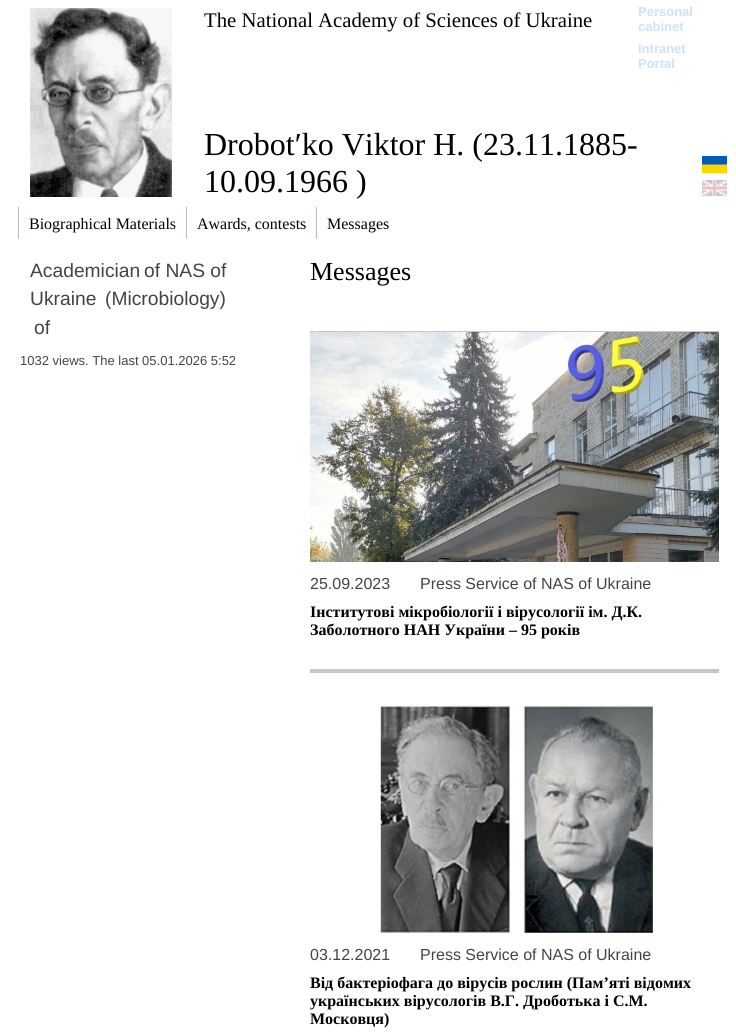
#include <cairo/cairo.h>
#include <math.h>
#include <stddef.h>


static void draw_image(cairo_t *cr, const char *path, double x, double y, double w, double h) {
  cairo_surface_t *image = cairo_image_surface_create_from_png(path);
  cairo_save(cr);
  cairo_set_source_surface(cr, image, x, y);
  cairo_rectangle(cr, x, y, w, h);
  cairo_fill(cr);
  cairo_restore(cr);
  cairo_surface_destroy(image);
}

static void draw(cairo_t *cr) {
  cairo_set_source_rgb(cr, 1, 1, 1);
  cairo_paint(cr);
  draw_image(cr, "images/1.png", 30, 8, 142, 189);
  draw_image(cr, "images/2.png", 702, 156, 25, 17);
  draw_image(cr, "images/3.png", 702, 180, 25, 16);
  cairo_set_source_rgb(cr, 178 / 255.0, 189 / 255.0, 211 / 255.0);
  cairo_rectangle(cr, 18, 207, 1, 32);
  cairo_fill(cr);
  cairo_rectangle(cr, 186, 207, 1, 32);
  cairo_fill(cr);
  cairo_rectangle(cr, 316, 207, 1, 32);
  cairo_fill(cr);
  cairo_set_source_rgb(cr, 198 / 255.0, 198 / 255.0, 198 / 255.0);
  cairo_rectangle(cr, 310, 331, 409, 1);
  cairo_fill(cr);
  draw_image(cr, "images/4.png", 310, 332, 409, 230);
  cairo_rectangle(cr, 310, 669, 409, 4);
  cairo_fill(cr);
  draw_image(cr, "images/5.png", 377, 705, 280, 228);
  cairo_select_font_face(cr, "Liberation Serif", CAIRO_FONT_SLANT_NORMAL, CAIRO_FONT_WEIGHT_NORMAL);
  cairo_set_font_size(cr, 20.75);
  cairo_set_source_rgb(cr, 0, 0, 0);
  cairo_move_to(cr, 204, 27);
  cairo_show_text(cr, "The National Academy of Sciences of Ukraine");
  cairo_select_font_face(cr, "Liberation Sans", CAIRO_FONT_SLANT_NORMAL, CAIRO_FONT_WEIGHT_BOLD);
  cairo_set_font_size(cr, 13);
  cairo_set_source_rgb(cr, 204 / 255.0, 227 / 255.0, 244 / 255.0);
  cairo_move_to(cr, 638, 16);
  cairo_show_text(cr, "Personal");
  cairo_move_to(cr, 638, 31);
  cairo_show_text(cr, "cabinet");
  cairo_move_to(cr, 638, 53);
  cairo_show_text(cr, "Intranet");
  cairo_move_to(cr, 638, 68);
  cairo_show_text(cr, "Portal");
  cairo_select_font_face(cr, "Liberation Serif", CAIRO_FONT_SLANT_NORMAL, CAIRO_FONT_WEIGHT_NORMAL);
  cairo_set_font_size(cr, 32);
  cairo_set_source_rgb(cr, 0, 0, 0);
  cairo_move_to(cr, 204, 155);
  cairo_show_text(cr, "Drobotʹko Viktor H. (23.11.1885-");
  cairo_move_to(cr, 204, 192);
  cairo_show_text(cr, "10.09.1966 )");
  cairo_set_font_size(cr, 16);
  cairo_move_to(cr, 29, 229);
  cairo_show_text(cr, "Biographical Materials");
  cairo_move_to(cr, 197, 229);
  cairo_show_text(cr, "Awards, contests");
  cairo_move_to(cr, 327, 229);
  cairo_show_text(cr, "Messages");
  cairo_select_font_face(cr, "Liberation Sans", CAIRO_FONT_SLANT_NORMAL, CAIRO_FONT_WEIGHT_NORMAL);
  cairo_set_font_size(cr, 19.25);
  cairo_set_source_rgb(cr, 68 / 255.0, 68 / 255.0, 68 / 255.0);
  cairo_move_to(cr, 30, 277);
  cairo_show_text(cr, "Academician");
  cairo_move_to(cr, 144, 277);
  cairo_show_text(cr, "of NAS of");
  cairo_move_to(cr, 30, 305);
  cairo_show_text(cr, "Ukraine");
  cairo_move_to(cr, 105, 305);
  cairo_show_text(cr, "(Microbiology)");
  cairo_move_to(cr, 34, 334);
  cairo_show_text(cr, "of");
  cairo_set_font_size(cr, 13);
  cairo_move_to(cr, 20, 365);
  cairo_show_text(cr, "1032 views. The last 05.01.2026 5:52");
  cairo_select_font_face(cr, "Liberation Serif", CAIRO_FONT_SLANT_NORMAL, CAIRO_FONT_WEIGHT_NORMAL);
  cairo_set_font_size(cr, 26);
  cairo_set_source_rgb(cr, 0, 0, 0);
  cairo_move_to(cr, 310, 280);
  cairo_show_text(cr, "Messages");
  cairo_select_font_face(cr, "Liberation Sans", CAIRO_FONT_SLANT_NORMAL, CAIRO_FONT_WEIGHT_NORMAL);
  cairo_set_font_size(cr, 16);
  cairo_set_source_rgb(cr, 68 / 255.0, 68 / 255.0, 68 / 255.0);
  cairo_move_to(cr, 310, 589);
  cairo_show_text(cr, "25.09.2023");
  cairo_move_to(cr, 420, 589);
  cairo_show_text(cr, "Press Service of NAS of Ukraine");
  cairo_select_font_face(cr, "Liberation Serif", CAIRO_FONT_SLANT_NORMAL, CAIRO_FONT_WEIGHT_BOLD);
  cairo_set_source_rgb(cr, 0, 0, 0);
  cairo_move_to(cr, 310, 617);
  cairo_show_text(cr, "Інститутові мікробіології і вірусології ім. Д.К.");
  cairo_move_to(cr, 310, 635);
  cairo_show_text(cr, "Заболотного НАН України – 95 років");
  cairo_select_font_face(cr, "Liberation Sans", CAIRO_FONT_SLANT_NORMAL, CAIRO_FONT_WEIGHT_NORMAL);
  cairo_set_source_rgb(cr, 68 / 255.0, 68 / 255.0, 68 / 255.0);
  cairo_move_to(cr, 310, 960);
  cairo_show_text(cr, "03.12.2021");
  cairo_move_to(cr, 420, 960);
  cairo_show_text(cr, "Press Service of NAS of Ukraine");
  cairo_select_font_face(cr, "Liberation Serif", CAIRO_FONT_SLANT_NORMAL, CAIRO_FONT_WEIGHT_BOLD);
  cairo_set_source_rgb(cr, 0, 0, 0);
  cairo_move_to(cr, 310, 988);
  cairo_show_text(cr, "Від бактеріофага до вірусів рослин (Пам’яті відомих");
  cairo_move_to(cr, 310, 1006);
  cairo_show_text(cr, "українських вірусологів В.Г. Дроботька і С.М.");
  cairo_move_to(cr, 310, 1024);
  cairo_show_text(cr, "Московця)");
}

int main(void) {
  cairo_surface_t *surface = cairo_image_surface_create(CAIRO_FORMAT_RGB24, 736, 1036);
  cairo_t *cr = cairo_create(surface);
  cairo_font_options_t *options = cairo_font_options_create();
  cairo_font_options_set_hint_metrics(options, CAIRO_HINT_METRICS_OFF);
  cairo_font_options_set_hint_style(options, CAIRO_HINT_STYLE_NONE);
  cairo_set_font_options(cr, options);
  cairo_set_miter_limit(cr, 4);
  draw(cr);
  cairo_surface_write_to_png(surface, "out.png");
  cairo_font_options_destroy(options);
  cairo_destroy(cr);
  cairo_surface_destroy(surface);
  return 0;
}
